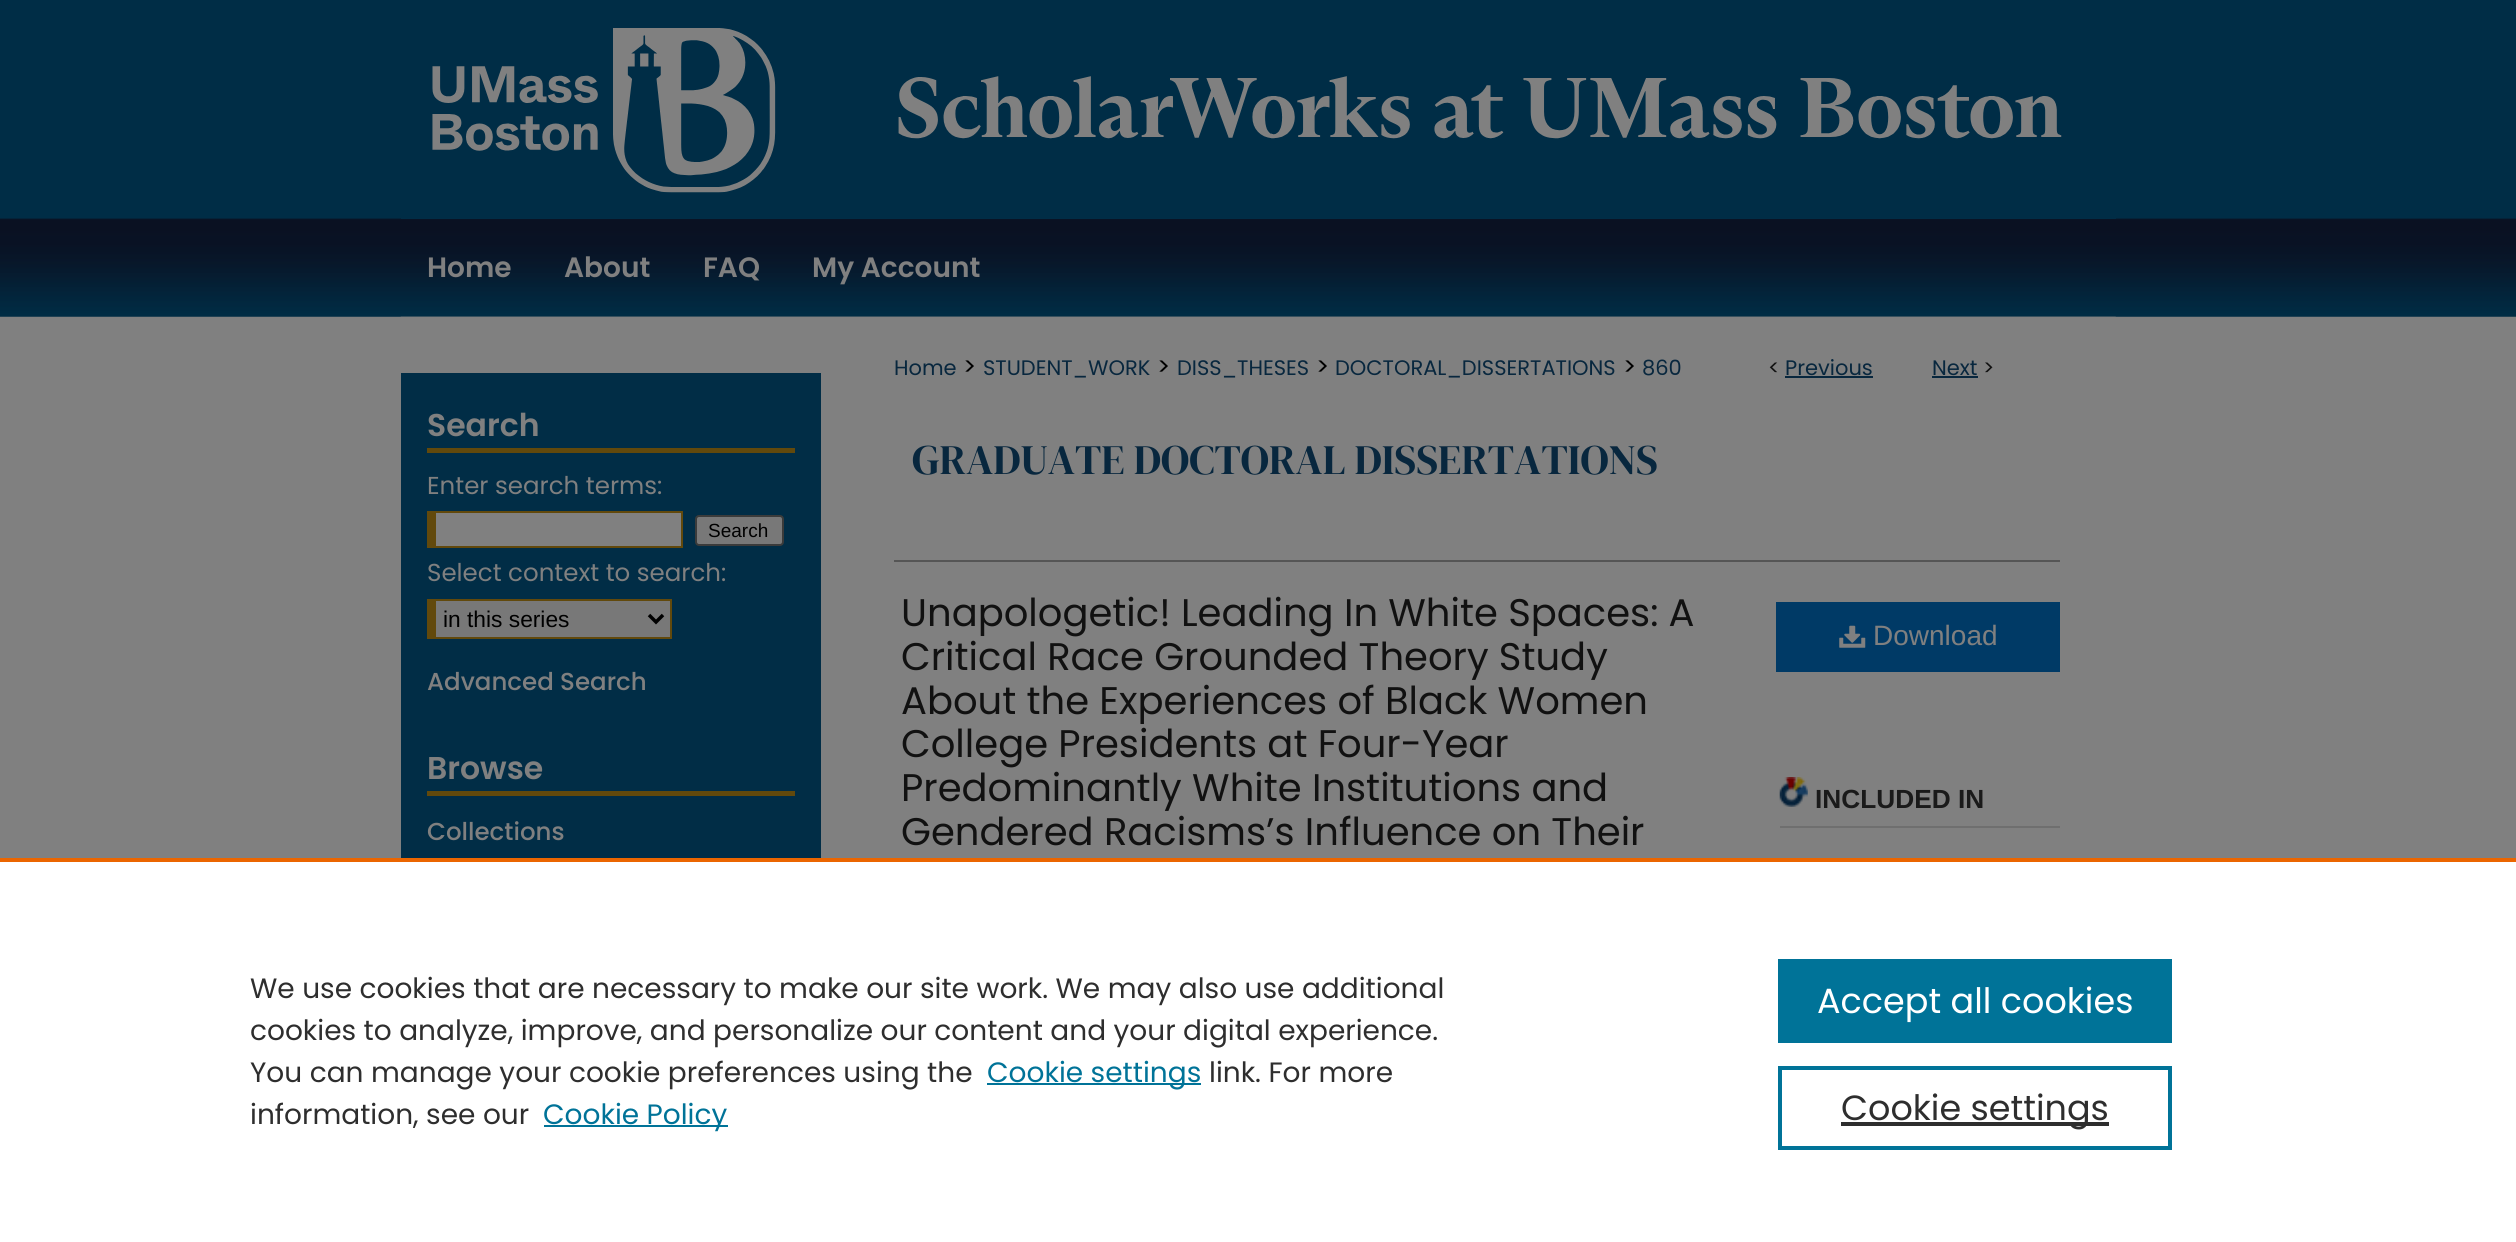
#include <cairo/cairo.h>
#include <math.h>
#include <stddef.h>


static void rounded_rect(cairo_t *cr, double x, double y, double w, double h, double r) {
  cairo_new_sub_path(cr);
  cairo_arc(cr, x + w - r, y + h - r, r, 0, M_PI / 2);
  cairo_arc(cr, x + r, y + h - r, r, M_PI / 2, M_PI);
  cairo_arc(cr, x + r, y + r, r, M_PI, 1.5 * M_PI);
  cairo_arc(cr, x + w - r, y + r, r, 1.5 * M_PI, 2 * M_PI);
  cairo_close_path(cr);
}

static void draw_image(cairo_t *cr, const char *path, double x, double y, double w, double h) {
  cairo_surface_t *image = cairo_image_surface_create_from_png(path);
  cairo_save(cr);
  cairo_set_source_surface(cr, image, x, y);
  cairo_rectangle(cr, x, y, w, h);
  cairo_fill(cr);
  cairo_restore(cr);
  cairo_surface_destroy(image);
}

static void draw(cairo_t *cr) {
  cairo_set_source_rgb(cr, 128 / 255.0, 128 / 255.0, 128 / 255.0);
  cairo_paint(cr);
  draw_image(cr, "images/1.png", 0, 0, 2516, 317);
  cairo_set_source_rgb(cr, 1 / 255.0, 45 / 255.0, 70 / 255.0);
  cairo_rectangle(cr, 401, 218, 1715, 1);
  cairo_fill(cr);
  draw_image(cr, "images/2.png", 432, 28, 1630, 165);
  draw_image(cr, "images/3.png", 400, 316, 1716, 1);
  cairo_rectangle(cr, 401, 373, 420, 485);
  cairo_fill(cr);
  cairo_set_source_rgb(cr, 98 / 255.0, 73 / 255.0, 12 / 255.0);
  cairo_rectangle(cr, 427, 448, 368, 5);
  cairo_fill(cr);
  cairo_set_source_rgb(cr, 128 / 255.0, 128 / 255.0, 128 / 255.0);
  cairo_rectangle(cr, 436, 513, 245, 33);
  cairo_fill(cr);
  cairo_set_source_rgb(cr, 98 / 255.0, 73 / 255.0, 12 / 255.0);
  cairo_rectangle(cr, 436, 511, 247, 2);
  cairo_fill(cr);
  cairo_rectangle(cr, 681, 511, 2, 37);
  cairo_fill(cr);
  cairo_rectangle(cr, 436, 546, 247, 2);
  cairo_fill(cr);
  cairo_rectangle(cr, 427, 511, 9, 37);
  cairo_fill(cr);
  cairo_set_source_rgb(cr, 120 / 255.0, 120 / 255.0, 120 / 255.0);
  rounded_rect(cr, 696, 516, 87, 29, 3);
  cairo_fill_preserve(cr);
  cairo_set_source_rgb(cr, 59 / 255.0, 59 / 255.0, 59 / 255.0);
  cairo_stroke(cr);
  cairo_set_source_rgb(cr, 120 / 255.0, 120 / 255.0, 120 / 255.0);
  cairo_rectangle(cr, 436, 601, 234, 36);
  cairo_fill(cr);
  cairo_set_source_rgb(cr, 98 / 255.0, 73 / 255.0, 12 / 255.0);
  cairo_rectangle(cr, 436, 599, 236, 2);
  cairo_fill(cr);
  cairo_rectangle(cr, 670, 599, 2, 40);
  cairo_fill(cr);
  cairo_rectangle(cr, 436, 637, 236, 2);
  cairo_fill(cr);
  cairo_rectangle(cr, 427, 599, 9, 40);
  cairo_fill(cr);
  cairo_new_path(cr);
  cairo_move_to(cr, 649, 615);
  cairo_line_to(cr, 656, 622);
  cairo_line_to(cr, 663, 615);
  cairo_set_source_rgb(cr, 0, 0, 0);
  cairo_set_line_width(cr, 3.5);
  cairo_stroke(cr);
  cairo_set_source_rgb(cr, 98 / 255.0, 73 / 255.0, 12 / 255.0);
  cairo_rectangle(cr, 427, 791, 368, 5);
  cairo_fill(cr);
  cairo_set_source_rgb(cr, 8 / 255.0, 39 / 255.0, 62 / 255.0);
  cairo_rectangle(cr, 1785, 376, 88, 2);
  cairo_fill(cr);
  cairo_rectangle(cr, 1932, 376, 46, 2);
  cairo_fill(cr);
  cairo_set_source_rgb(cr, 85 / 255.0, 85 / 255.0, 85 / 255.0);
  cairo_rectangle(cr, 894, 560, 1166, 2);
  cairo_fill(cr);
  cairo_set_source_rgb(cr, 0, 58 / 255.0, 102 / 255.0);
  cairo_rectangle(cr, 1776, 602, 284, 70);
  cairo_fill(cr);
  draw_image(cr, "images/4.png", 1839, 625, 27, 23);
  draw_image(cr, "images/5.png", 1779, 777, 29, 30);
  cairo_set_source_rgb(cr, 111 / 255.0, 111 / 255.0, 111 / 255.0);
  cairo_rectangle(cr, 1780, 826, 280, 2);
  cairo_fill(cr);
  cairo_set_source_rgb(cr, 1, 1, 1);
  cairo_rectangle(cr, 0, 862, 2516, 380);
  cairo_fill(cr);
  cairo_set_source_rgb(cr, 235 / 255.0, 101 / 255.0, 0);
  cairo_rectangle(cr, 0, 858, 2516, 4);
  cairo_fill(cr);
  cairo_set_source_rgb(cr, 0, 115 / 255.0, 152 / 255.0);
  cairo_rectangle(cr, 987, 1083, 214, 2);
  cairo_fill(cr);
  cairo_rectangle(cr, 544, 1125, 184, 2);
  cairo_fill(cr);
  cairo_rectangle(cr, 1778, 959, 394, 84);
  cairo_fill(cr);
  cairo_rectangle(cr, 1780, 1068, 390, 80);
  cairo_set_line_width(cr, 4);
  cairo_stroke(cr);
  cairo_set_source_rgb(cr, 46 / 255.0, 46 / 255.0, 46 / 255.0);
  cairo_rectangle(cr, 1841, 1122, 268, 4);
  cairo_fill(cr);
  cairo_select_font_face(cr, "Poppins SemiBold", CAIRO_FONT_SLANT_NORMAL, CAIRO_FONT_WEIGHT_NORMAL);
  cairo_set_font_size(cr, 28);
  cairo_set_source_rgb(cr, 128 / 255.0, 128 / 255.0, 128 / 255.0);
  cairo_move_to(cr, 427, 277);
  cairo_show_text(cr, "Home");
  cairo_move_to(cr, 564, 277);
  cairo_show_text(cr, "About");
  cairo_move_to(cr, 703, 277);
  cairo_show_text(cr, "FAQ");
  cairo_move_to(cr, 812, 277);
  cairo_show_text(cr, "My Account");
  cairo_set_font_size(cr, 31.5);
  cairo_move_to(cr, 427, 436);
  cairo_show_text(cr, "Search");
  cairo_select_font_face(cr, "Poppins", CAIRO_FONT_SLANT_NORMAL, CAIRO_FONT_WEIGHT_NORMAL);
  cairo_set_font_size(cr, 24.5);
  cairo_move_to(cr, 427, 494);
  cairo_show_text(cr, "Enter search terms:");
  cairo_select_font_face(cr, "Liberation Sans", CAIRO_FONT_SLANT_NORMAL, CAIRO_FONT_WEIGHT_NORMAL);
  cairo_set_font_size(cr, 19);
  cairo_set_source_rgb(cr, 0, 0, 0);
  cairo_move_to(cr, 708, 537);
  cairo_show_text(cr, "Search");
  cairo_select_font_face(cr, "Poppins", CAIRO_FONT_SLANT_NORMAL, CAIRO_FONT_WEIGHT_NORMAL);
  cairo_set_font_size(cr, 24.5);
  cairo_set_source_rgb(cr, 128 / 255.0, 128 / 255.0, 128 / 255.0);
  cairo_move_to(cr, 427, 581);
  cairo_show_text(cr, "Select context to search:");
  cairo_select_font_face(cr, "Liberation Sans", CAIRO_FONT_SLANT_NORMAL, CAIRO_FONT_WEIGHT_NORMAL);
  cairo_set_font_size(cr, 22.75);
  cairo_set_source_rgb(cr, 0, 0, 0);
  cairo_move_to(cr, 443, 627);
  cairo_show_text(cr, "in this series");
  cairo_select_font_face(cr, "Poppins Medium", CAIRO_FONT_SLANT_NORMAL, CAIRO_FONT_WEIGHT_NORMAL);
  cairo_set_font_size(cr, 24.5);
  cairo_set_source_rgb(cr, 128 / 255.0, 128 / 255.0, 128 / 255.0);
  cairo_move_to(cr, 427, 690);
  cairo_show_text(cr, "Advanced Search");
  cairo_select_font_face(cr, "Poppins SemiBold", CAIRO_FONT_SLANT_NORMAL, CAIRO_FONT_WEIGHT_NORMAL);
  cairo_set_font_size(cr, 31.5);
  cairo_move_to(cr, 427, 779);
  cairo_show_text(cr, "Browse");
  cairo_select_font_face(cr, "Poppins Medium", CAIRO_FONT_SLANT_NORMAL, CAIRO_FONT_WEIGHT_NORMAL);
  cairo_set_font_size(cr, 24.5);
  cairo_move_to(cr, 427, 840);
  cairo_show_text(cr, "Collections");
  cairo_select_font_face(cr, "Poppins", CAIRO_FONT_SLANT_NORMAL, CAIRO_FONT_WEIGHT_NORMAL);
  cairo_set_font_size(cr, 21);
  cairo_set_source_rgb(cr, 8 / 255.0, 39 / 255.0, 62 / 255.0);
  cairo_move_to(cr, 894, 375);
  cairo_show_text(cr, "Home");
  cairo_set_font_size(cr, 24.5);
  cairo_set_source_rgb(cr, 0, 0, 0);
  cairo_move_to(cr, 963, 375);
  cairo_show_text(cr, ">");
  cairo_set_font_size(cr, 21);
  cairo_set_source_rgb(cr, 8 / 255.0, 39 / 255.0, 62 / 255.0);
  cairo_move_to(cr, 983, 375);
  cairo_show_text(cr, "STUDENT_WORK");
  cairo_set_font_size(cr, 24.5);
  cairo_set_source_rgb(cr, 0, 0, 0);
  cairo_move_to(cr, 1157, 375);
  cairo_show_text(cr, ">");
  cairo_set_font_size(cr, 21);
  cairo_set_source_rgb(cr, 8 / 255.0, 39 / 255.0, 62 / 255.0);
  cairo_move_to(cr, 1177, 375);
  cairo_show_text(cr, "DISS_THESES");
  cairo_set_font_size(cr, 24.5);
  cairo_set_source_rgb(cr, 0, 0, 0);
  cairo_move_to(cr, 1316, 375);
  cairo_show_text(cr, ">");
  cairo_set_font_size(cr, 21);
  cairo_set_source_rgb(cr, 8 / 255.0, 39 / 255.0, 62 / 255.0);
  cairo_move_to(cr, 1335, 375);
  cairo_show_text(cr, "DOCTORAL_DISSERTATIONS");
  cairo_set_font_size(cr, 24.5);
  cairo_set_source_rgb(cr, 0, 0, 0);
  cairo_move_to(cr, 1623, 375);
  cairo_show_text(cr, ">");
  cairo_set_font_size(cr, 21);
  cairo_set_source_rgb(cr, 8 / 255.0, 39 / 255.0, 62 / 255.0);
  cairo_move_to(cr, 1642, 375);
  cairo_show_text(cr, "860");
  cairo_set_source_rgb(cr, 17 / 255.0, 17 / 255.0, 17 / 255.0);
  cairo_move_to(cr, 1768, 375);
  cairo_show_text(cr, "<");
  cairo_set_source_rgb(cr, 8 / 255.0, 39 / 255.0, 62 / 255.0);
  cairo_move_to(cr, 1785, 375);
  cairo_show_text(cr, "Previous");
  cairo_move_to(cr, 1932, 375);
  cairo_show_text(cr, "Next");
  cairo_set_source_rgb(cr, 17 / 255.0, 17 / 255.0, 17 / 255.0);
  cairo_move_to(cr, 1983, 375);
  cairo_show_text(cr, ">");
  cairo_select_font_face(cr, "DM Serif Display", CAIRO_FONT_SLANT_NORMAL, CAIRO_FONT_WEIGHT_NORMAL);
  cairo_set_font_size(cr, 42);
  cairo_set_source_rgb(cr, 8 / 255.0, 39 / 255.0, 62 / 255.0);
  cairo_move_to(cr, 912, 474);
  cairo_show_text(cr, "GRADUATE DOCTORAL DISSERTATIONS");
  cairo_select_font_face(cr, "Poppins", CAIRO_FONT_SLANT_NORMAL, CAIRO_FONT_WEIGHT_NORMAL);
  cairo_set_font_size(cr, 38.5);
  cairo_set_source_rgb(cr, 17 / 255.0, 17 / 255.0, 17 / 255.0);
  cairo_move_to(cr, 901, 626);
  cairo_show_text(cr, "Unapologetic! Leading In White Spaces: A");
  cairo_move_to(cr, 901, 670);
  cairo_show_text(cr, "Critical Race Grounded Theory Study");
  cairo_move_to(cr, 901, 714);
  cairo_show_text(cr, "About the Experiences of Black Women");
  cairo_move_to(cr, 901, 757);
  cairo_show_text(cr, "College Presidents at Four-Year");
  cairo_move_to(cr, 901, 801);
  cairo_show_text(cr, "Predominantly White Institutions and");
  cairo_move_to(cr, 901, 845);
  cairo_show_text(cr, "Gendered Racisms’s Influence on Their");
  cairo_select_font_face(cr, "Liberation Sans", CAIRO_FONT_SLANT_NORMAL, CAIRO_FONT_WEIGHT_NORMAL);
  cairo_set_font_size(cr, 28);
  cairo_set_source_rgb(cr, 128 / 255.0, 128 / 255.0, 128 / 255.0);
  cairo_move_to(cr, 1873, 645);
  cairo_show_text(cr, "Download");
  cairo_select_font_face(cr, "Liberation Sans", CAIRO_FONT_SLANT_NORMAL, CAIRO_FONT_WEIGHT_BOLD);
  cairo_set_font_size(cr, 26.25);
  cairo_set_source_rgb(cr, 26 / 255.0, 26 / 255.0, 26 / 255.0);
  cairo_move_to(cr, 1815, 808);
  cairo_show_text(cr, "INCLUDED IN");
  cairo_select_font_face(cr, "Poppins", CAIRO_FONT_SLANT_NORMAL, CAIRO_FONT_WEIGHT_NORMAL);
  cairo_set_font_size(cr, 28);
  cairo_set_source_rgb(cr, 46 / 255.0, 46 / 255.0, 46 / 255.0);
  cairo_move_to(cr, 250, 998);
  cairo_show_text(cr, "We use cookies that are necessary to make our site work. We may also use additional");
  cairo_move_to(cr, 250, 1040);
  cairo_show_text(cr, "cookies to analyze, improve, and personalize our content and your digital experience.");
  cairo_move_to(cr, 250, 1082);
  cairo_show_text(cr, "You can manage your cookie preferences using the");
  cairo_set_source_rgb(cr, 0, 115 / 255.0, 152 / 255.0);
  cairo_move_to(cr, 987, 1082);
  cairo_show_text(cr, "Cookie settings");
  cairo_set_source_rgb(cr, 46 / 255.0, 46 / 255.0, 46 / 255.0);
  cairo_move_to(cr, 1209, 1082);
  cairo_show_text(cr, "link. For more");
  cairo_move_to(cr, 250, 1124);
  cairo_show_text(cr, "information, see our");
  cairo_set_source_rgb(cr, 0, 115 / 255.0, 152 / 255.0);
  cairo_move_to(cr, 543, 1124);
  cairo_show_text(cr, "Cookie Policy");
  cairo_set_font_size(cr, 35);
  cairo_set_source_rgb(cr, 1, 1, 1);
  cairo_move_to(cr, 1817, 1013);
  cairo_show_text(cr, "Accept all cookies");
  cairo_set_source_rgb(cr, 46 / 255.0, 46 / 255.0, 46 / 255.0);
  cairo_move_to(cr, 1841, 1120);
  cairo_show_text(cr, "Cookie settings");
}

int main(void) {
  cairo_surface_t *surface = cairo_image_surface_create(CAIRO_FORMAT_RGB24, 2516, 1242);
  cairo_t *cr = cairo_create(surface);
  cairo_font_options_t *options = cairo_font_options_create();
  cairo_font_options_set_hint_metrics(options, CAIRO_HINT_METRICS_OFF);
  cairo_font_options_set_hint_style(options, CAIRO_HINT_STYLE_NONE);
  cairo_set_font_options(cr, options);
  cairo_set_miter_limit(cr, 4);
  draw(cr);
  cairo_surface_write_to_png(surface, "out.png");
  cairo_font_options_destroy(options);
  cairo_destroy(cr);
  cairo_surface_destroy(surface);
  return 0;
}
